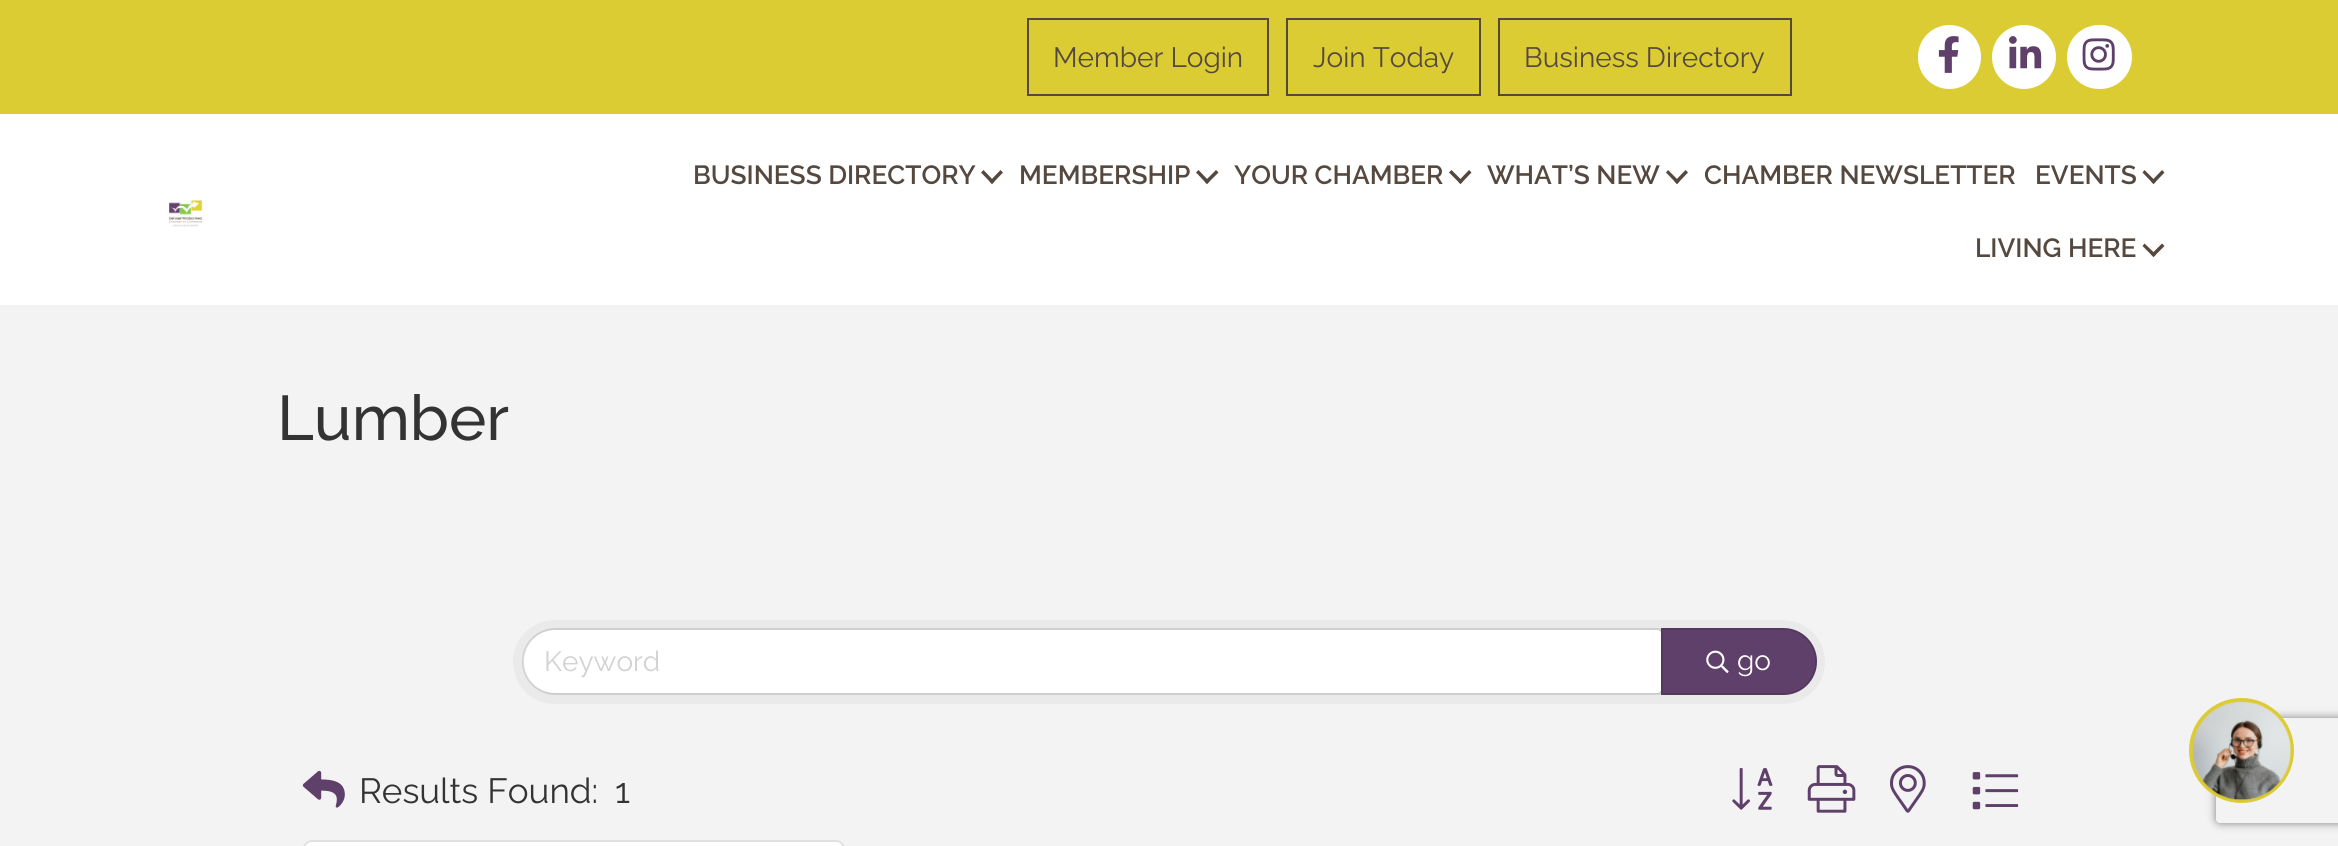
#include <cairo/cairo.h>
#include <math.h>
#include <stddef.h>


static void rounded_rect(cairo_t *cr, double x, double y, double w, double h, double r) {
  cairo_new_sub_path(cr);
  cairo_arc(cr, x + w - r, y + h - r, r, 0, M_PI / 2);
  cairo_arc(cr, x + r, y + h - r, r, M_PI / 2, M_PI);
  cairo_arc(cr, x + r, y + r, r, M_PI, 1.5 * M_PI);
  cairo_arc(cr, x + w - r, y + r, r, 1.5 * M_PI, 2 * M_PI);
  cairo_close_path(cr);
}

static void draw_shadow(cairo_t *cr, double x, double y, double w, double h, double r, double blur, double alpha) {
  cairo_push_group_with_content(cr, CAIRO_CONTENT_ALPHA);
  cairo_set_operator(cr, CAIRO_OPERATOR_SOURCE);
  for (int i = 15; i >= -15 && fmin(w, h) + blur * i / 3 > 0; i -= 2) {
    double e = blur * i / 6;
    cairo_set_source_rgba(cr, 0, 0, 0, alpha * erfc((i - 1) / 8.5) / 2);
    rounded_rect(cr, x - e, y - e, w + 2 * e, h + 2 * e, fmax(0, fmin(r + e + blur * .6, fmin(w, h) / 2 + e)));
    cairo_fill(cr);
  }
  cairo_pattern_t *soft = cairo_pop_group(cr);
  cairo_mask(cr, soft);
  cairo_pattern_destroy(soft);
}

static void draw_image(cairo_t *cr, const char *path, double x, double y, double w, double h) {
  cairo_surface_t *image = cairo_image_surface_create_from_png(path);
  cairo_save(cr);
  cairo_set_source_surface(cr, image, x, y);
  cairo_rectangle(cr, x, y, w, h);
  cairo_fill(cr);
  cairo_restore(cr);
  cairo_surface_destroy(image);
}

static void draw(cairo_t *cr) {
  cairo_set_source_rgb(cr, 1, 1, 1);
  cairo_paint(cr);
  cairo_set_source_rgb(cr, 220 / 255.0, 204 / 255.0, 51 / 255.0);
  cairo_rectangle(cr, 0, 0, 2338, 114);
  cairo_fill(cr);
  cairo_rectangle(cr, 1028, 19, 240, 76);
  cairo_set_source_rgb(cr, 85 / 255.0, 72 / 255.0, 63 / 255.0);
  cairo_stroke(cr);
  cairo_rectangle(cr, 1287, 19, 193, 76);
  cairo_stroke(cr);
  cairo_rectangle(cr, 1499, 19, 292, 76);
  cairo_stroke(cr);
  cairo_set_source_rgb(cr, 1, 1, 1);
  rounded_rect(cr, 1918, 25, 63, 64, 31.5);
  cairo_fill(cr);
  draw_image(cr, "images/1.png", 1938, 36, 21, 37);
  cairo_arc(cr, 2024, 57, 32, 0, 2 * M_PI);
  cairo_fill(cr);
  draw_image(cr, "images/2.png", 2009, 36, 33, 33);
  rounded_rect(cr, 2067, 25, 65, 64, 32);
  cairo_fill(cr);
  draw_image(cr, "images/3.png", 2082, 38, 33, 33);
  draw_image(cr, "images/4.png", 169, 200, 34, 27);
  cairo_set_source_rgb(cr, 85 / 255.0, 72 / 255.0, 63 / 255.0);
  cairo_new_path(cr);
  cairo_move_to(cr, 1000.5, 170);
  cairo_line_to(cr, 1003, 172.5);
  cairo_line_to(cr, 992, 184);
  cairo_line_to(cr, 989.5, 181.5);
  cairo_close_path(cr);
  cairo_fill(cr);
  cairo_new_path(cr);
  cairo_move_to(cr, 983.5, 170);
  cairo_line_to(cr, 994.5, 181.5);
  cairo_line_to(cr, 992, 184);
  cairo_line_to(cr, 981, 172.5);
  cairo_close_path(cr);
  cairo_fill(cr);
  cairo_new_path(cr);
  cairo_move_to(cr, 1216, 170);
  cairo_line_to(cr, 1218.5, 172.5);
  cairo_line_to(cr, 1207, 184);
  cairo_line_to(cr, 1204.5, 181.5);
  cairo_close_path(cr);
  cairo_fill(cr);
  cairo_new_path(cr);
  cairo_move_to(cr, 1198.5, 170);
  cairo_line_to(cr, 1209.5, 181.5);
  cairo_line_to(cr, 1207, 184);
  cairo_line_to(cr, 1196, 172.5);
  cairo_close_path(cr);
  cairo_fill(cr);
  cairo_new_path(cr);
  cairo_move_to(cr, 1469, 170);
  cairo_line_to(cr, 1471.5, 172.5);
  cairo_line_to(cr, 1460.5, 184);
  cairo_line_to(cr, 1458, 181.5);
  cairo_close_path(cr);
  cairo_fill(cr);
  cairo_new_path(cr);
  cairo_move_to(cr, 1451.5, 170);
  cairo_line_to(cr, 1463, 181.5);
  cairo_line_to(cr, 1460.5, 184);
  cairo_line_to(cr, 1449, 172.5);
  cairo_close_path(cr);
  cairo_fill(cr);
  cairo_new_path(cr);
  cairo_move_to(cr, 1685.5, 170);
  cairo_line_to(cr, 1688, 172.5);
  cairo_line_to(cr, 1677, 184);
  cairo_line_to(cr, 1674.5, 181.5);
  cairo_close_path(cr);
  cairo_fill(cr);
  cairo_new_path(cr);
  cairo_move_to(cr, 1668, 170);
  cairo_line_to(cr, 1679.5, 181.5);
  cairo_line_to(cr, 1677, 184);
  cairo_line_to(cr, 1666, 172.5);
  cairo_close_path(cr);
  cairo_fill(cr);
  cairo_new_path(cr);
  cairo_move_to(cr, 2162, 170);
  cairo_line_to(cr, 2164.5, 172.5);
  cairo_line_to(cr, 2153.5, 184);
  cairo_line_to(cr, 2151, 181.5);
  cairo_close_path(cr);
  cairo_fill(cr);
  cairo_new_path(cr);
  cairo_move_to(cr, 2144.5, 170);
  cairo_line_to(cr, 2156, 181.5);
  cairo_line_to(cr, 2153.5, 184);
  cairo_line_to(cr, 2142.5, 172.5);
  cairo_close_path(cr);
  cairo_fill(cr);
  cairo_new_path(cr);
  cairo_move_to(cr, 2162, 243.5);
  cairo_line_to(cr, 2164.5, 246);
  cairo_line_to(cr, 2153.5, 257);
  cairo_line_to(cr, 2151, 254.5);
  cairo_close_path(cr);
  cairo_fill(cr);
  cairo_new_path(cr);
  cairo_move_to(cr, 2144.5, 243.5);
  cairo_line_to(cr, 2156, 254.5);
  cairo_line_to(cr, 2153.5, 257);
  cairo_line_to(cr, 2142.5, 246);
  cairo_close_path(cr);
  cairo_fill(cr);
  cairo_set_source_rgb(cr, 243 / 255.0, 243 / 255.0, 243 / 255.0);
  cairo_rectangle(cr, 0, 305, 2338, 541);
  cairo_fill(cr);
  cairo_set_source_rgb(cr, 234 / 255.0, 234 / 255.0, 234 / 255.0);
  rounded_rect(cr, 513, 620, 1312, 84, 42);
  cairo_fill(cr);
  cairo_set_source_rgb(cr, 1, 1, 1);
  cairo_new_path(cr);
  cairo_move_to(cr, 554.5, 630);
  cairo_line_to(cr, 1657, 630);
  cairo_curve_to(cr, 1659, 630, 1661, 632, 1661, 634);
  cairo_line_to(cr, 1661, 689);
  cairo_curve_to(cr, 1661, 691, 1659, 693, 1657, 693);
  cairo_line_to(cr, 554.5, 693);
  cairo_curve_to(cr, 537, 693, 523, 679, 523, 661.5);
  cairo_curve_to(cr, 523, 644, 537, 630, 554.5, 630);
  cairo_close_path(cr);
  cairo_fill(cr);
  cairo_new_path(cr);
  cairo_move_to(cr, 555.5, 629);
  cairo_line_to(cr, 1658, 629);
  cairo_curve_to(cr, 1660, 629, 1662, 631, 1662, 633);
  cairo_line_to(cr, 1662, 690);
  cairo_curve_to(cr, 1662, 692, 1660, 694, 1658, 694);
  cairo_line_to(cr, 555.5, 694);
  cairo_curve_to(cr, 537.5, 694, 523, 679.5, 523, 661.5);
  cairo_curve_to(cr, 523, 643.5, 537.5, 629, 555.5, 629);
  cairo_close_path(cr);
  cairo_set_source_rgba(cr, 0, 0, 0, 0.12);
  cairo_stroke(cr);
  cairo_set_source_rgb(cr, 95 / 255.0, 64 / 255.0, 107 / 255.0);
  cairo_new_path(cr);
  cairo_move_to(cr, 1661, 628);
  cairo_line_to(cr, 1783.5, 628);
  cairo_curve_to(cr, 1802, 628, 1817, 643, 1817, 661.5);
  cairo_curve_to(cr, 1817, 680, 1802, 695, 1783.5, 695);
  cairo_line_to(cr, 1661, 695);
  cairo_close_path(cr);
  cairo_fill(cr);
  cairo_new_path(cr);
  cairo_move_to(cr, 1662, 629);
  cairo_line_to(cr, 1783.5, 629);
  cairo_curve_to(cr, 1801.5, 629, 1816, 643.5, 1816, 661.5);
  cairo_curve_to(cr, 1816, 679.5, 1801.5, 694, 1783.5, 694);
  cairo_line_to(cr, 1662, 694);
  cairo_close_path(cr);
  cairo_set_source_rgba(cr, 0, 0, 0, 0.12);
  cairo_stroke(cr);
  draw_image(cr, "images/5.png", 1706, 650, 23, 23);
  draw_image(cr, "images/6.png", 302, 770, 43, 38);
  draw_image(cr, "images/7.png", 1732, 768, 41, 42);
  draw_image(cr, "images/8.png", 1807, 765, 49, 48);
  draw_image(cr, "images/9.png", 1890, 765, 36, 48);
  draw_image(cr, "images/10.png", 1972, 772, 47, 38);
  cairo_set_source_rgb(cr, 1, 1, 1);
  rounded_rect(cr, 303, 840, 542, 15, 9);
  cairo_fill(cr);
  rounded_rect(cr, 304, 841, 540, 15, 8);
  cairo_set_source_rgba(cr, 0, 0, 0, 0.12);
  cairo_stroke(cr);
  cairo_save(cr);
  cairo_set_fill_rule(cr, CAIRO_FILL_RULE_EVEN_ODD);
  cairo_new_path(cr);
  cairo_move_to(cr, 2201, 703);
  cairo_line_to(cr, 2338, 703);
  cairo_line_to(cr, 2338, 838);
  cairo_line_to(cr, 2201, 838);
  cairo_close_path(cr);
  cairo_move_to(cr, 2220, 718);
  cairo_line_to(cr, 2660, 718);
  cairo_curve_to(cr, 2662, 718, 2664, 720, 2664, 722);
  cairo_line_to(cr, 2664, 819);
  cairo_curve_to(cr, 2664, 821, 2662, 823, 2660, 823);
  cairo_line_to(cr, 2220, 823);
  cairo_curve_to(cr, 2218, 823, 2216, 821, 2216, 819);
  cairo_line_to(cr, 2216, 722);
  cairo_curve_to(cr, 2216, 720, 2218, 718, 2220, 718);
  cairo_close_path(cr);
  cairo_clip(cr);
  cairo_set_source_rgb(cr, 128 / 255.0, 128 / 255.0, 128 / 255.0);
  draw_shadow(cr, 2216, 718, 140, 105, 4, 4.5, 1);
  cairo_restore(cr);
  cairo_set_source_rgb(cr, 220 / 255.0, 203 / 255.0, 51 / 255.0);
  cairo_arc(cr, 2241.5, 750.5, 52.5, 0, 2 * M_PI);
  cairo_fill(cr);
  draw_image(cr, "images/11.png", 2192, 701, 100, 100);
  cairo_select_font_face(cr, "Raleway", CAIRO_FONT_SLANT_NORMAL, CAIRO_FONT_WEIGHT_NORMAL);
  cairo_set_font_size(cr, 28);
  cairo_set_source_rgb(cr, 85 / 255.0, 72 / 255.0, 63 / 255.0);
  cairo_move_to(cr, 1053, 67);
  cairo_show_text(cr, "Member Login");
  cairo_move_to(cr, 1313, 67);
  cairo_show_text(cr, "Join Today");
  cairo_move_to(cr, 1524, 67);
  cairo_show_text(cr, "Business Directory");
  cairo_select_font_face(cr, "Raleway SemiBold", CAIRO_FONT_SLANT_NORMAL, CAIRO_FONT_WEIGHT_NORMAL);
  cairo_set_font_size(cr, 26.25);
  cairo_move_to(cr, 693, 184);
  cairo_show_text(cr, "BUSINESS DIRECTORY");
  cairo_move_to(cr, 1019, 184);
  cairo_show_text(cr, "MEMBERSHIP");
  cairo_move_to(cr, 1234, 184);
  cairo_show_text(cr, "YOUR CHAMBER");
  cairo_move_to(cr, 1487, 184);
  cairo_show_text(cr, "WHAT’S NEW");
  cairo_move_to(cr, 1704, 184);
  cairo_show_text(cr, "CHAMBER NEWSLETTER");
  cairo_move_to(cr, 2035, 184);
  cairo_show_text(cr, "EVENTS");
  cairo_move_to(cr, 1975, 257);
  cairo_show_text(cr, "LIVING HERE");
  cairo_select_font_face(cr, "Raleway Medium", CAIRO_FONT_SLANT_NORMAL, CAIRO_FONT_WEIGHT_NORMAL);
  cairo_set_font_size(cr, 63);
  cairo_set_source_rgb(cr, 51 / 255.0, 51 / 255.0, 51 / 255.0);
  cairo_move_to(cr, 277, 440);
  cairo_show_text(cr, "Lumber");
  cairo_select_font_face(cr, "Raleway", CAIRO_FONT_SLANT_NORMAL, CAIRO_FONT_WEIGHT_NORMAL);
  cairo_set_font_size(cr, 28);
  cairo_set_source_rgb(cr, 210 / 255.0, 210 / 255.0, 210 / 255.0);
  cairo_move_to(cr, 544, 671);
  cairo_show_text(cr, "Keyword");
  cairo_set_source_rgb(cr, 1, 1, 1);
  cairo_move_to(cr, 1737, 670);
  cairo_show_text(cr, "go");
  cairo_set_font_size(cr, 35);
  cairo_set_source_rgb(cr, 51 / 255.0, 51 / 255.0, 51 / 255.0);
  cairo_move_to(cr, 359, 803);
  cairo_show_text(cr, "Results Found:");
  cairo_move_to(cr, 615, 803);
  cairo_show_text(cr, "1");
}

int main(void) {
  cairo_surface_t *surface = cairo_image_surface_create(CAIRO_FORMAT_RGB24, 2338, 846);
  cairo_t *cr = cairo_create(surface);
  cairo_font_options_t *options = cairo_font_options_create();
  cairo_font_options_set_hint_metrics(options, CAIRO_HINT_METRICS_OFF);
  cairo_font_options_set_hint_style(options, CAIRO_HINT_STYLE_NONE);
  cairo_set_font_options(cr, options);
  cairo_set_miter_limit(cr, 4);
  draw(cr);
  cairo_surface_write_to_png(surface, "out.png");
  cairo_font_options_destroy(options);
  cairo_destroy(cr);
  cairo_surface_destroy(surface);
  return 0;
}
